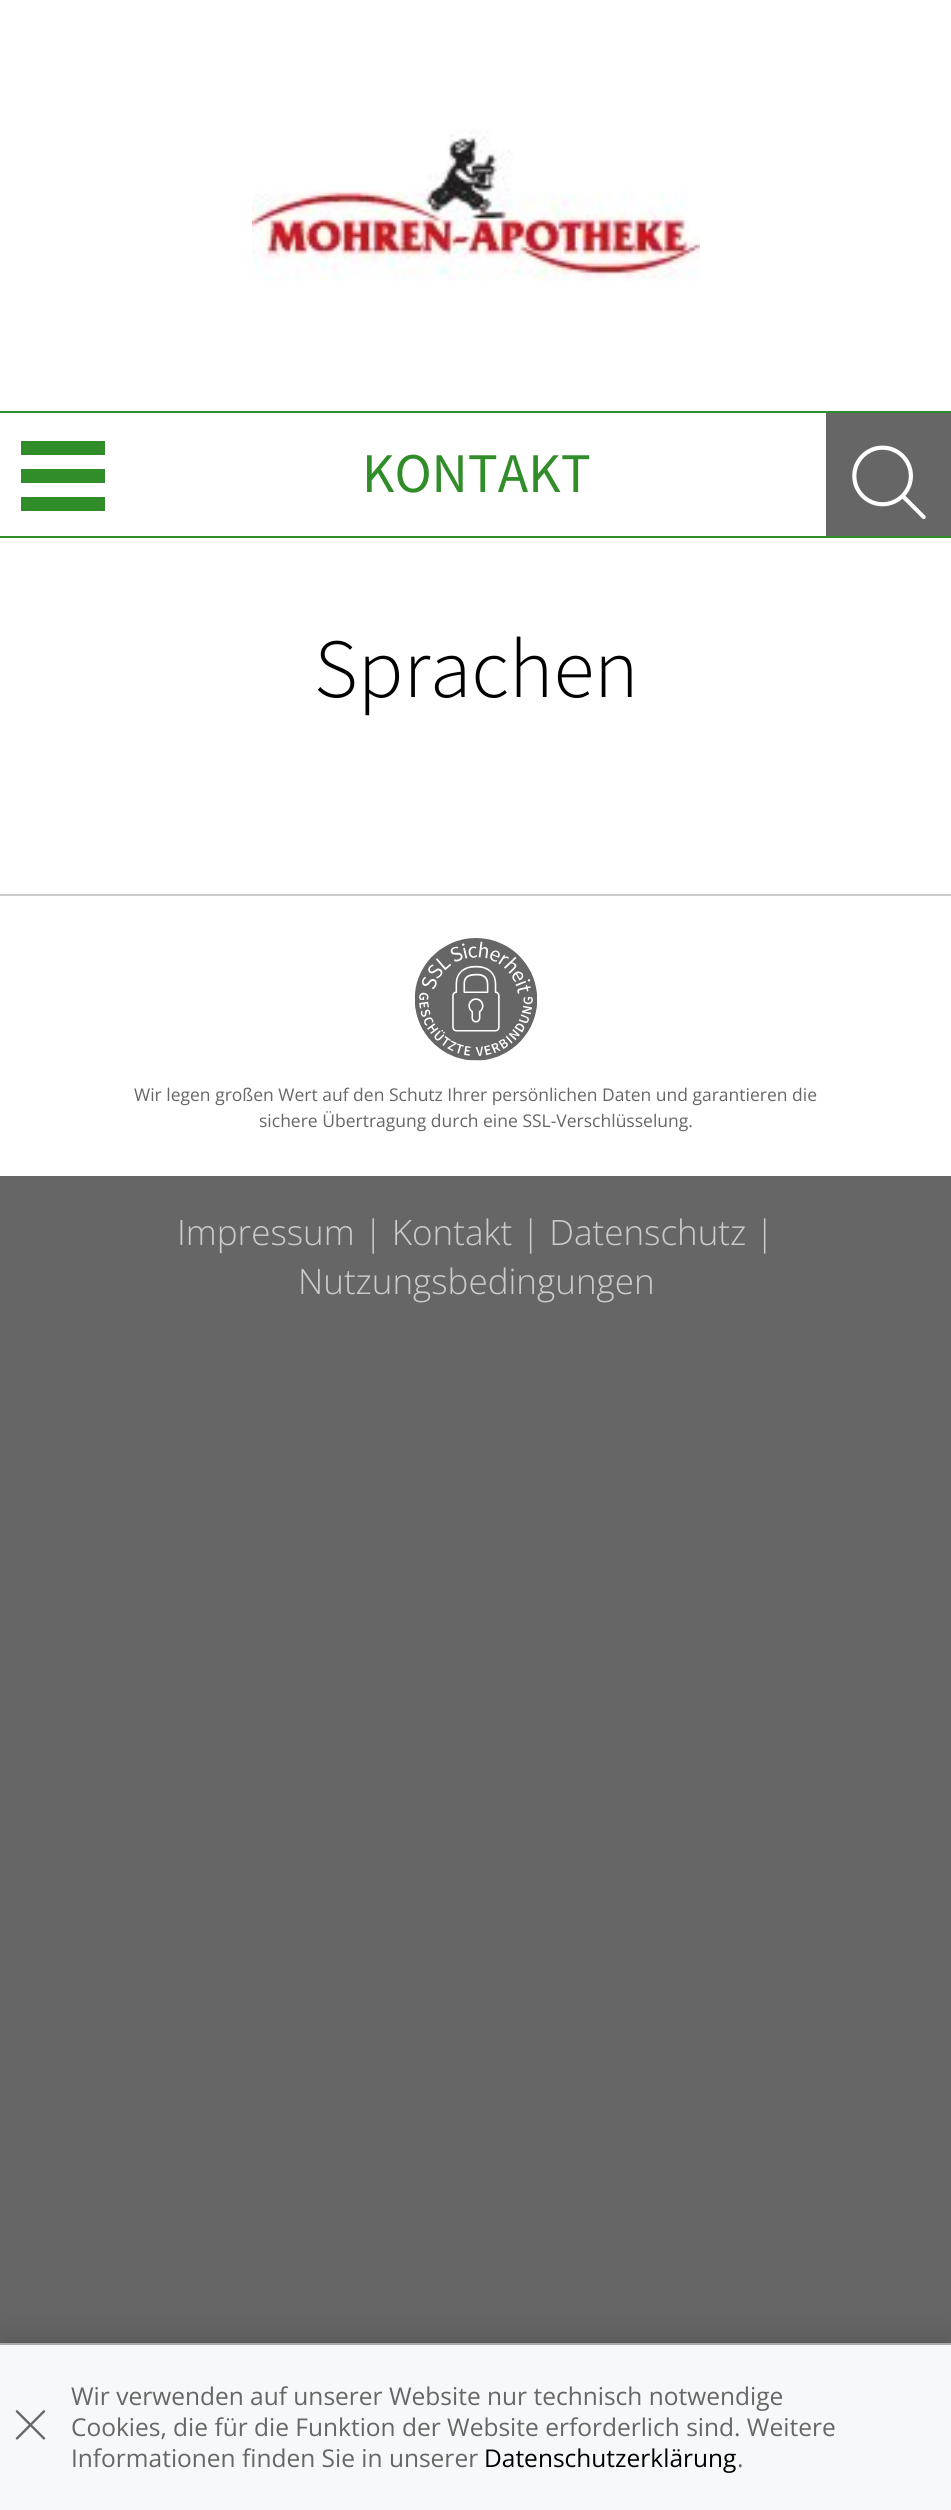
#include <cairo/cairo.h>
#include <math.h>
#include <stddef.h>


static void rounded_rect(cairo_t *cr, double x, double y, double w, double h, double r) {
  cairo_new_sub_path(cr);
  cairo_arc(cr, x + w - r, y + h - r, r, 0, M_PI / 2);
  cairo_arc(cr, x + r, y + h - r, r, M_PI / 2, M_PI);
  cairo_arc(cr, x + r, y + r, r, M_PI, 1.5 * M_PI);
  cairo_arc(cr, x + w - r, y + r, r, 1.5 * M_PI, 2 * M_PI);
  cairo_close_path(cr);
}

static void draw_shadow(cairo_t *cr, double x, double y, double w, double h, double r, double blur, double alpha) {
  cairo_push_group_with_content(cr, CAIRO_CONTENT_ALPHA);
  cairo_set_operator(cr, CAIRO_OPERATOR_SOURCE);
  for (int i = 15; i >= -15 && fmin(w, h) + blur * i / 3 > 0; i -= 2) {
    double e = blur * i / 6;
    cairo_set_source_rgba(cr, 0, 0, 0, alpha * erfc((i - 1) / 8.5) / 2);
    rounded_rect(cr, x - e, y - e, w + 2 * e, h + 2 * e, fmax(0, fmin(r + e + blur * .6, fmin(w, h) / 2 + e)));
    cairo_fill(cr);
  }
  cairo_pattern_t *soft = cairo_pop_group(cr);
  cairo_mask(cr, soft);
  cairo_pattern_destroy(soft);
}

static void draw_image(cairo_t *cr, const char *path, double x, double y, double w, double h) {
  cairo_surface_t *image = cairo_image_surface_create_from_png(path);
  cairo_save(cr);
  cairo_set_source_surface(cr, image, x, y);
  cairo_rectangle(cr, x, y, w, h);
  cairo_fill(cr);
  cairo_restore(cr);
  cairo_surface_destroy(image);
}

static void draw(cairo_t *cr) {
  cairo_set_source_rgb(cr, 102 / 255.0, 102 / 255.0, 102 / 255.0);
  cairo_paint(cr);
  cairo_set_source_rgb(cr, 1, 1, 1);
  cairo_rectangle(cr, 0, 0, 951, 411);
  cairo_fill(cr);
  draw_image(cr, "images/1.png", 252, 129, 448, 153);
  cairo_set_source_rgb(cr, 49 / 255.0, 140 / 255.0, 42 / 255.0);
  cairo_rectangle(cr, 0, 411, 951, 2);
  cairo_fill(cr);
  cairo_rectangle(cr, 0, 536, 951, 2);
  cairo_fill(cr);
  cairo_set_source_rgb(cr, 1, 1, 1);
  cairo_rectangle(cr, 0, 413, 826, 123);
  cairo_fill(cr);
  cairo_set_source_rgb(cr, 49 / 255.0, 140 / 255.0, 42 / 255.0);
  cairo_rectangle(cr, 21, 469, 84, 14);
  cairo_fill(cr);
  cairo_rectangle(cr, 21, 441, 84, 14);
  cairo_fill(cr);
  cairo_rectangle(cr, 21, 497, 84, 14);
  cairo_fill(cr);
  draw_image(cr, "images/2.png", 852, 445, 74, 75);
  cairo_set_source_rgb(cr, 1, 1, 1);
  cairo_rectangle(cr, 0, 538, 951, 356);
  cairo_fill(cr);
  cairo_rectangle(cr, 0, 896, 951, 280);
  cairo_fill(cr);
  cairo_set_source_rgb(cr, 204 / 255.0, 204 / 255.0, 204 / 255.0);
  cairo_rectangle(cr, 0, 894, 951, 2);
  cairo_fill(cr);
  draw_image(cr, "images/3.png", 415, 938, 122, 123);
  cairo_set_source_rgb(cr, 0, 0, 0);
  draw_shadow(cr, 0, 2343, 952, 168, 0, 17.5, 0.2);
  cairo_set_source_rgb(cr, 247 / 255.0, 248 / 255.0, 249 / 255.0);
  cairo_rectangle(cr, 0, 2345, 951, 165);
  cairo_fill(cr);
  cairo_set_source_rgb(cr, 169 / 255.0, 169 / 255.0, 169 / 255.0);
  cairo_rectangle(cr, 0, 2343, 951, 2);
  cairo_fill(cr);
  draw_image(cr, "images/4.png", 15, 2410, 31, 30);
  cairo_select_font_face(cr, "Source Sans Pro", CAIRO_FONT_SLANT_NORMAL, CAIRO_FONT_WEIGHT_NORMAL);
  cairo_set_font_size(cr, 56);
  cairo_set_source_rgb(cr, 49 / 255.0, 140 / 255.0, 42 / 255.0);
  cairo_move_to(cr, 362, 492);
  cairo_show_text(cr, "KONTAKT");
  cairo_select_font_face(cr, "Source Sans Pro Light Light", CAIRO_FONT_SLANT_NORMAL, CAIRO_FONT_WEIGHT_NORMAL);
  cairo_set_font_size(cr, 84);
  cairo_set_source_rgb(cr, 0, 0, 0);
  cairo_move_to(cr, 314, 697);
  cairo_show_text(cr, "Sprachen");
  cairo_select_font_face(cr, "Open Sans", CAIRO_FONT_SLANT_NORMAL, CAIRO_FONT_WEIGHT_NORMAL);
  cairo_set_font_size(cr, 17.5);
  cairo_set_source_rgb(cr, 102 / 255.0, 102 / 255.0, 102 / 255.0);
  cairo_move_to(cr, 134, 1101);
  cairo_show_text(cr, "Wir legen großen Wert auf den Schutz Ihrer persönlichen Daten und garantieren die");
  cairo_move_to(cr, 259, 1127);
  cairo_show_text(cr, "sichere Übertragung durch eine SSL-Verschlüsselung.");
  cairo_select_font_face(cr, "Open Sans Light", CAIRO_FONT_SLANT_NORMAL, CAIRO_FONT_WEIGHT_NORMAL);
  cairo_set_font_size(cr, 35);
  cairo_set_source_rgb(cr, 204 / 255.0, 204 / 255.0, 204 / 255.0);
  cairo_move_to(cr, 177, 1245);
  cairo_show_text(cr, "Impressum | Kontakt | Datenschutz |");
  cairo_move_to(cr, 298, 1294);
  cairo_show_text(cr, "Nutzungsbedingungen");
  cairo_select_font_face(cr, "Open Sans", CAIRO_FONT_SLANT_NORMAL, CAIRO_FONT_WEIGHT_NORMAL);
  cairo_set_font_size(cr, 24.5);
  cairo_set_source_rgb(cr, 102 / 255.0, 102 / 255.0, 102 / 255.0);
  cairo_move_to(cr, 71, 2405);
  cairo_show_text(cr, "Wir verwenden auf unserer Website nur technisch notwendige");
  cairo_move_to(cr, 71, 2436);
  cairo_show_text(cr, "Cookies, die für die Funktion der Website erforderlich sind. Weitere");
  cairo_move_to(cr, 71, 2467);
  cairo_show_text(cr, "Informationen finden Sie in unserer");
  cairo_set_source_rgb(cr, 0, 0, 0);
  cairo_move_to(cr, 484, 2467);
  cairo_show_text(cr, "Datenschutzerklärung");
  cairo_set_source_rgb(cr, 102 / 255.0, 102 / 255.0, 102 / 255.0);
  cairo_move_to(cr, 737, 2467);
  cairo_show_text(cr, ".");
}

int main(void) {
  cairo_surface_t *surface = cairo_image_surface_create(CAIRO_FORMAT_RGB24, 951, 2510);
  cairo_t *cr = cairo_create(surface);
  cairo_font_options_t *options = cairo_font_options_create();
  cairo_font_options_set_hint_metrics(options, CAIRO_HINT_METRICS_OFF);
  cairo_font_options_set_hint_style(options, CAIRO_HINT_STYLE_NONE);
  cairo_set_font_options(cr, options);
  cairo_set_miter_limit(cr, 4);
  draw(cr);
  cairo_surface_write_to_png(surface, "out.png");
  cairo_font_options_destroy(options);
  cairo_destroy(cr);
  cairo_surface_destroy(surface);
  return 0;
}
